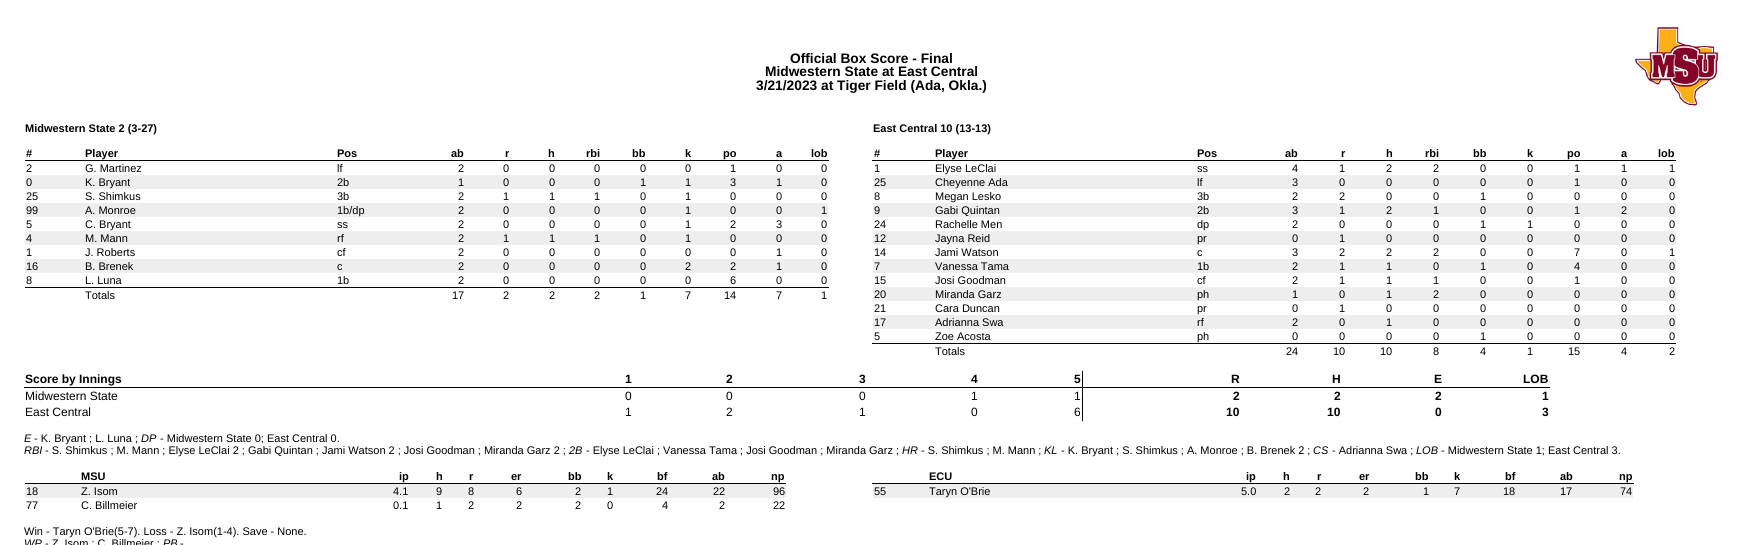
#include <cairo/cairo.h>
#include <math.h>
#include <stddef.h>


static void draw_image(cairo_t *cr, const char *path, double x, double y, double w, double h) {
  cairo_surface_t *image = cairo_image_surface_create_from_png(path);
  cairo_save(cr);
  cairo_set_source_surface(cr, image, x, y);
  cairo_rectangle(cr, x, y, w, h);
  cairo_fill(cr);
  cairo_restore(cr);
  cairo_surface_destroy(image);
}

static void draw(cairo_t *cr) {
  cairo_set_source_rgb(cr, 1, 1, 1);
  cairo_paint(cr);
  draw_image(cr, "images/1.png", 1634, 26, 85, 80);
  cairo_set_source_rgb(cr, 0, 0, 0);
  cairo_rectangle(cr, 25, 160, 804, 1);
  cairo_fill(cr);
  cairo_set_source_rgb(cr, 238 / 255.0, 238 / 255.0, 238 / 255.0);
  cairo_rectangle(cr, 25, 175, 803, 14);
  cairo_fill(cr);
  cairo_rectangle(cr, 25, 203, 803, 14);
  cairo_fill(cr);
  cairo_rectangle(cr, 25, 231, 803, 14);
  cairo_fill(cr);
  cairo_rectangle(cr, 25, 259, 803, 14);
  cairo_fill(cr);
  cairo_set_source_rgb(cr, 0, 0, 0);
  cairo_rectangle(cr, 25, 287, 804, 1);
  cairo_fill(cr);
  cairo_rectangle(cr, 872, 160, 804, 1);
  cairo_fill(cr);
  cairo_set_source_rgb(cr, 238 / 255.0, 238 / 255.0, 238 / 255.0);
  cairo_rectangle(cr, 873, 175, 803, 14);
  cairo_fill(cr);
  cairo_rectangle(cr, 873, 203, 803, 14);
  cairo_fill(cr);
  cairo_rectangle(cr, 873, 231, 803, 14);
  cairo_fill(cr);
  cairo_rectangle(cr, 873, 259, 803, 14);
  cairo_fill(cr);
  cairo_rectangle(cr, 873, 287, 803, 14);
  cairo_fill(cr);
  cairo_rectangle(cr, 873, 315, 803, 14);
  cairo_fill(cr);
  cairo_set_source_rgb(cr, 0, 0, 0);
  cairo_rectangle(cr, 872, 343, 804, 1);
  cairo_fill(cr);
  cairo_rectangle(cr, 1082, 387, 1, 34);
  cairo_fill(cr);
  cairo_rectangle(cr, 1082, 387, 468, 1);
  cairo_fill(cr);
  cairo_rectangle(cr, 1082, 371, 1, 17);
  cairo_fill(cr);
  cairo_rectangle(cr, 24, 387, 1059, 1);
  cairo_fill(cr);
  cairo_rectangle(cr, 25, 483, 761, 1);
  cairo_fill(cr);
  cairo_set_source_rgb(cr, 238 / 255.0, 238 / 255.0, 238 / 255.0);
  cairo_rectangle(cr, 25, 484, 761, 14);
  cairo_fill(cr);
  cairo_set_source_rgb(cr, 0, 0, 0);
  cairo_rectangle(cr, 872, 483, 762, 1);
  cairo_fill(cr);
  cairo_set_source_rgb(cr, 238 / 255.0, 238 / 255.0, 238 / 255.0);
  cairo_rectangle(cr, 873, 484, 760, 14);
  cairo_fill(cr);
  cairo_select_font_face(cr, "Liberation Sans", CAIRO_FONT_SLANT_NORMAL, CAIRO_FONT_WEIGHT_BOLD);
  cairo_set_font_size(cr, 13.75);
  cairo_set_source_rgb(cr, 0, 0, 0);
  cairo_move_to(cr, 790, 63);
  cairo_show_text(cr, "Official Box Score - Final");
  cairo_move_to(cr, 765, 76);
  cairo_show_text(cr, "Midwestern State at East Central");
  cairo_move_to(cr, 756, 90);
  cairo_show_text(cr, "3/21/2023 at Tiger Field (Ada, Okla.)");
  cairo_set_font_size(cr, 11);
  cairo_move_to(cr, 25, 132);
  cairo_show_text(cr, "Midwestern State 2 (3-27)");
  cairo_move_to(cr, 26, 157);
  cairo_show_text(cr, "#");
  cairo_move_to(cr, 85, 157);
  cairo_show_text(cr, "Player");
  cairo_move_to(cr, 337, 157);
  cairo_show_text(cr, "Pos");
  cairo_move_to(cr, 451, 157);
  cairo_show_text(cr, "ab");
  cairo_move_to(cr, 505, 157);
  cairo_show_text(cr, "r");
  cairo_move_to(cr, 548, 157);
  cairo_show_text(cr, "h");
  cairo_move_to(cr, 586, 157);
  cairo_show_text(cr, "rbi");
  cairo_move_to(cr, 632, 157);
  cairo_show_text(cr, "bb");
  cairo_move_to(cr, 685, 157);
  cairo_show_text(cr, "k");
  cairo_move_to(cr, 723, 157);
  cairo_show_text(cr, "po");
  cairo_move_to(cr, 776, 157);
  cairo_show_text(cr, "a");
  cairo_move_to(cr, 811, 157);
  cairo_show_text(cr, "lob");
  cairo_select_font_face(cr, "Liberation Sans", CAIRO_FONT_SLANT_NORMAL, CAIRO_FONT_WEIGHT_NORMAL);
  cairo_move_to(cr, 26, 172);
  cairo_show_text(cr, "2");
  cairo_move_to(cr, 85, 172);
  cairo_show_text(cr, "G. Martinez");
  cairo_move_to(cr, 337, 172);
  cairo_show_text(cr, "lf");
  cairo_move_to(cr, 458, 172);
  cairo_show_text(cr, "2");
  cairo_move_to(cr, 503, 172);
  cairo_show_text(cr, "0");
  cairo_move_to(cr, 549, 172);
  cairo_show_text(cr, "0");
  cairo_move_to(cr, 594, 172);
  cairo_show_text(cr, "0");
  cairo_move_to(cr, 640, 172);
  cairo_show_text(cr, "0");
  cairo_move_to(cr, 685, 172);
  cairo_show_text(cr, "0");
  cairo_move_to(cr, 730, 172);
  cairo_show_text(cr, "1");
  cairo_move_to(cr, 776, 172);
  cairo_show_text(cr, "0");
  cairo_move_to(cr, 821, 172);
  cairo_show_text(cr, "0");
  cairo_move_to(cr, 26, 186);
  cairo_show_text(cr, "0");
  cairo_move_to(cr, 85, 186);
  cairo_show_text(cr, "K. Bryant");
  cairo_move_to(cr, 337, 186);
  cairo_show_text(cr, "2b");
  cairo_move_to(cr, 458, 186);
  cairo_show_text(cr, "1");
  cairo_move_to(cr, 503, 186);
  cairo_show_text(cr, "0");
  cairo_move_to(cr, 549, 186);
  cairo_show_text(cr, "0");
  cairo_move_to(cr, 594, 186);
  cairo_show_text(cr, "0");
  cairo_move_to(cr, 640, 186);
  cairo_show_text(cr, "1");
  cairo_move_to(cr, 685, 186);
  cairo_show_text(cr, "1");
  cairo_move_to(cr, 730, 186);
  cairo_show_text(cr, "3");
  cairo_move_to(cr, 776, 186);
  cairo_show_text(cr, "1");
  cairo_move_to(cr, 821, 186);
  cairo_show_text(cr, "0");
  cairo_move_to(cr, 26, 200);
  cairo_show_text(cr, "25");
  cairo_move_to(cr, 85, 200);
  cairo_show_text(cr, "S. Shimkus");
  cairo_move_to(cr, 337, 200);
  cairo_show_text(cr, "3b");
  cairo_move_to(cr, 458, 200);
  cairo_show_text(cr, "2");
  cairo_move_to(cr, 503, 200);
  cairo_show_text(cr, "1");
  cairo_move_to(cr, 549, 200);
  cairo_show_text(cr, "1");
  cairo_move_to(cr, 594, 200);
  cairo_show_text(cr, "1");
  cairo_move_to(cr, 640, 200);
  cairo_show_text(cr, "0");
  cairo_move_to(cr, 685, 200);
  cairo_show_text(cr, "1");
  cairo_move_to(cr, 730, 200);
  cairo_show_text(cr, "0");
  cairo_move_to(cr, 776, 200);
  cairo_show_text(cr, "0");
  cairo_move_to(cr, 821, 200);
  cairo_show_text(cr, "0");
  cairo_move_to(cr, 26, 214);
  cairo_show_text(cr, "99");
  cairo_move_to(cr, 85, 214);
  cairo_show_text(cr, "A. Monroe");
  cairo_move_to(cr, 337, 214);
  cairo_show_text(cr, "1b/dp");
  cairo_move_to(cr, 458, 214);
  cairo_show_text(cr, "2");
  cairo_move_to(cr, 503, 214);
  cairo_show_text(cr, "0");
  cairo_move_to(cr, 549, 214);
  cairo_show_text(cr, "0");
  cairo_move_to(cr, 594, 214);
  cairo_show_text(cr, "0");
  cairo_move_to(cr, 640, 214);
  cairo_show_text(cr, "0");
  cairo_move_to(cr, 685, 214);
  cairo_show_text(cr, "1");
  cairo_move_to(cr, 730, 214);
  cairo_show_text(cr, "0");
  cairo_move_to(cr, 776, 214);
  cairo_show_text(cr, "0");
  cairo_move_to(cr, 821, 214);
  cairo_show_text(cr, "1");
  cairo_move_to(cr, 26, 228);
  cairo_show_text(cr, "5");
  cairo_move_to(cr, 85, 228);
  cairo_show_text(cr, "C. Bryant");
  cairo_move_to(cr, 337, 228);
  cairo_show_text(cr, "ss");
  cairo_move_to(cr, 458, 228);
  cairo_show_text(cr, "2");
  cairo_move_to(cr, 503, 228);
  cairo_show_text(cr, "0");
  cairo_move_to(cr, 549, 228);
  cairo_show_text(cr, "0");
  cairo_move_to(cr, 594, 228);
  cairo_show_text(cr, "0");
  cairo_move_to(cr, 640, 228);
  cairo_show_text(cr, "0");
  cairo_move_to(cr, 685, 228);
  cairo_show_text(cr, "1");
  cairo_move_to(cr, 730, 228);
  cairo_show_text(cr, "2");
  cairo_move_to(cr, 776, 228);
  cairo_show_text(cr, "3");
  cairo_move_to(cr, 821, 228);
  cairo_show_text(cr, "0");
  cairo_move_to(cr, 26, 242);
  cairo_show_text(cr, "4");
  cairo_move_to(cr, 85, 242);
  cairo_show_text(cr, "M. Mann");
  cairo_move_to(cr, 337, 242);
  cairo_show_text(cr, "rf");
  cairo_move_to(cr, 458, 242);
  cairo_show_text(cr, "2");
  cairo_move_to(cr, 503, 242);
  cairo_show_text(cr, "1");
  cairo_move_to(cr, 549, 242);
  cairo_show_text(cr, "1");
  cairo_move_to(cr, 594, 242);
  cairo_show_text(cr, "1");
  cairo_move_to(cr, 640, 242);
  cairo_show_text(cr, "0");
  cairo_move_to(cr, 685, 242);
  cairo_show_text(cr, "1");
  cairo_move_to(cr, 730, 242);
  cairo_show_text(cr, "0");
  cairo_move_to(cr, 776, 242);
  cairo_show_text(cr, "0");
  cairo_move_to(cr, 821, 242);
  cairo_show_text(cr, "0");
  cairo_move_to(cr, 26, 256);
  cairo_show_text(cr, "1");
  cairo_move_to(cr, 85, 256);
  cairo_show_text(cr, "J. Roberts");
  cairo_move_to(cr, 337, 256);
  cairo_show_text(cr, "cf");
  cairo_move_to(cr, 458, 256);
  cairo_show_text(cr, "2");
  cairo_move_to(cr, 503, 256);
  cairo_show_text(cr, "0");
  cairo_move_to(cr, 549, 256);
  cairo_show_text(cr, "0");
  cairo_move_to(cr, 594, 256);
  cairo_show_text(cr, "0");
  cairo_move_to(cr, 640, 256);
  cairo_show_text(cr, "0");
  cairo_move_to(cr, 685, 256);
  cairo_show_text(cr, "0");
  cairo_move_to(cr, 730, 256);
  cairo_show_text(cr, "0");
  cairo_move_to(cr, 776, 256);
  cairo_show_text(cr, "1");
  cairo_move_to(cr, 821, 256);
  cairo_show_text(cr, "0");
  cairo_move_to(cr, 26, 270);
  cairo_show_text(cr, "16");
  cairo_move_to(cr, 85, 270);
  cairo_show_text(cr, "B. Brenek");
  cairo_move_to(cr, 337, 270);
  cairo_show_text(cr, "c");
  cairo_move_to(cr, 458, 270);
  cairo_show_text(cr, "2");
  cairo_move_to(cr, 503, 270);
  cairo_show_text(cr, "0");
  cairo_move_to(cr, 549, 270);
  cairo_show_text(cr, "0");
  cairo_move_to(cr, 594, 270);
  cairo_show_text(cr, "0");
  cairo_move_to(cr, 640, 270);
  cairo_show_text(cr, "0");
  cairo_move_to(cr, 685, 270);
  cairo_show_text(cr, "2");
  cairo_move_to(cr, 730, 270);
  cairo_show_text(cr, "2");
  cairo_move_to(cr, 776, 270);
  cairo_show_text(cr, "1");
  cairo_move_to(cr, 821, 270);
  cairo_show_text(cr, "0");
  cairo_move_to(cr, 26, 284);
  cairo_show_text(cr, "8");
  cairo_move_to(cr, 85, 284);
  cairo_show_text(cr, "L. Luna");
  cairo_move_to(cr, 337, 284);
  cairo_show_text(cr, "1b");
  cairo_move_to(cr, 458, 284);
  cairo_show_text(cr, "2");
  cairo_move_to(cr, 503, 284);
  cairo_show_text(cr, "0");
  cairo_move_to(cr, 549, 284);
  cairo_show_text(cr, "0");
  cairo_move_to(cr, 594, 284);
  cairo_show_text(cr, "0");
  cairo_move_to(cr, 640, 284);
  cairo_show_text(cr, "0");
  cairo_move_to(cr, 685, 284);
  cairo_show_text(cr, "0");
  cairo_move_to(cr, 730, 284);
  cairo_show_text(cr, "6");
  cairo_move_to(cr, 776, 284);
  cairo_show_text(cr, "0");
  cairo_move_to(cr, 821, 284);
  cairo_show_text(cr, "0");
  cairo_move_to(cr, 85, 299);
  cairo_show_text(cr, "Totals");
  cairo_move_to(cr, 452, 299);
  cairo_show_text(cr, "17");
  cairo_move_to(cr, 503, 299);
  cairo_show_text(cr, "2");
  cairo_move_to(cr, 549, 299);
  cairo_show_text(cr, "2");
  cairo_move_to(cr, 594, 299);
  cairo_show_text(cr, "2");
  cairo_move_to(cr, 640, 299);
  cairo_show_text(cr, "1");
  cairo_move_to(cr, 685, 299);
  cairo_show_text(cr, "7");
  cairo_move_to(cr, 724, 299);
  cairo_show_text(cr, "14");
  cairo_move_to(cr, 776, 299);
  cairo_show_text(cr, "7");
  cairo_move_to(cr, 821, 299);
  cairo_show_text(cr, "1");
  cairo_select_font_face(cr, "Liberation Sans", CAIRO_FONT_SLANT_NORMAL, CAIRO_FONT_WEIGHT_BOLD);
  cairo_move_to(cr, 873, 132);
  cairo_show_text(cr, "East Central 10 (13-13)");
  cairo_move_to(cr, 874, 157);
  cairo_show_text(cr, "#");
  cairo_move_to(cr, 935, 157);
  cairo_show_text(cr, "Player");
  cairo_move_to(cr, 1197, 157);
  cairo_show_text(cr, "Pos");
  cairo_move_to(cr, 1285, 157);
  cairo_show_text(cr, "ab");
  cairo_move_to(cr, 1341, 157);
  cairo_show_text(cr, "r");
  cairo_move_to(cr, 1386, 157);
  cairo_show_text(cr, "h");
  cairo_move_to(cr, 1425, 157);
  cairo_show_text(cr, "rbi");
  cairo_move_to(cr, 1473, 157);
  cairo_show_text(cr, "bb");
  cairo_move_to(cr, 1527, 157);
  cairo_show_text(cr, "k");
  cairo_move_to(cr, 1567, 157);
  cairo_show_text(cr, "po");
  cairo_move_to(cr, 1621, 157);
  cairo_show_text(cr, "a");
  cairo_move_to(cr, 1658, 157);
  cairo_show_text(cr, "lob");
  cairo_select_font_face(cr, "Liberation Sans", CAIRO_FONT_SLANT_NORMAL, CAIRO_FONT_WEIGHT_NORMAL);
  cairo_move_to(cr, 874, 172);
  cairo_show_text(cr, "1");
  cairo_move_to(cr, 935, 172);
  cairo_show_text(cr, "Elyse LeClai");
  cairo_move_to(cr, 1197, 172);
  cairo_show_text(cr, "ss");
  cairo_move_to(cr, 1292, 172);
  cairo_show_text(cr, "4");
  cairo_move_to(cr, 1339, 172);
  cairo_show_text(cr, "1");
  cairo_move_to(cr, 1386, 172);
  cairo_show_text(cr, "2");
  cairo_move_to(cr, 1433, 172);
  cairo_show_text(cr, "2");
  cairo_move_to(cr, 1480, 172);
  cairo_show_text(cr, "0");
  cairo_move_to(cr, 1527, 172);
  cairo_show_text(cr, "0");
  cairo_move_to(cr, 1574, 172);
  cairo_show_text(cr, "1");
  cairo_move_to(cr, 1621, 172);
  cairo_show_text(cr, "1");
  cairo_move_to(cr, 1669, 172);
  cairo_show_text(cr, "1");
  cairo_move_to(cr, 874, 186);
  cairo_show_text(cr, "25");
  cairo_move_to(cr, 935, 186);
  cairo_show_text(cr, "Cheyenne Ada");
  cairo_move_to(cr, 1197, 186);
  cairo_show_text(cr, "lf");
  cairo_move_to(cr, 1292, 186);
  cairo_show_text(cr, "3");
  cairo_move_to(cr, 1339, 186);
  cairo_show_text(cr, "0");
  cairo_move_to(cr, 1386, 186);
  cairo_show_text(cr, "0");
  cairo_move_to(cr, 1433, 186);
  cairo_show_text(cr, "0");
  cairo_move_to(cr, 1480, 186);
  cairo_show_text(cr, "0");
  cairo_move_to(cr, 1527, 186);
  cairo_show_text(cr, "0");
  cairo_move_to(cr, 1574, 186);
  cairo_show_text(cr, "1");
  cairo_move_to(cr, 1621, 186);
  cairo_show_text(cr, "0");
  cairo_move_to(cr, 1669, 186);
  cairo_show_text(cr, "0");
  cairo_move_to(cr, 874, 200);
  cairo_show_text(cr, "8");
  cairo_move_to(cr, 935, 200);
  cairo_show_text(cr, "Megan Lesko");
  cairo_move_to(cr, 1197, 200);
  cairo_show_text(cr, "3b");
  cairo_move_to(cr, 1292, 200);
  cairo_show_text(cr, "2");
  cairo_move_to(cr, 1339, 200);
  cairo_show_text(cr, "2");
  cairo_move_to(cr, 1386, 200);
  cairo_show_text(cr, "0");
  cairo_move_to(cr, 1433, 200);
  cairo_show_text(cr, "0");
  cairo_move_to(cr, 1480, 200);
  cairo_show_text(cr, "1");
  cairo_move_to(cr, 1527, 200);
  cairo_show_text(cr, "0");
  cairo_move_to(cr, 1574, 200);
  cairo_show_text(cr, "0");
  cairo_move_to(cr, 1621, 200);
  cairo_show_text(cr, "0");
  cairo_move_to(cr, 1669, 200);
  cairo_show_text(cr, "0");
  cairo_move_to(cr, 874, 214);
  cairo_show_text(cr, "9");
  cairo_move_to(cr, 935, 214);
  cairo_show_text(cr, "Gabi Quintan");
  cairo_move_to(cr, 1197, 214);
  cairo_show_text(cr, "2b");
  cairo_move_to(cr, 1292, 214);
  cairo_show_text(cr, "3");
  cairo_move_to(cr, 1339, 214);
  cairo_show_text(cr, "1");
  cairo_move_to(cr, 1386, 214);
  cairo_show_text(cr, "2");
  cairo_move_to(cr, 1433, 214);
  cairo_show_text(cr, "1");
  cairo_move_to(cr, 1480, 214);
  cairo_show_text(cr, "0");
  cairo_move_to(cr, 1527, 214);
  cairo_show_text(cr, "0");
  cairo_move_to(cr, 1574, 214);
  cairo_show_text(cr, "1");
  cairo_move_to(cr, 1621, 214);
  cairo_show_text(cr, "2");
  cairo_move_to(cr, 1669, 214);
  cairo_show_text(cr, "0");
  cairo_move_to(cr, 874, 228);
  cairo_show_text(cr, "24");
  cairo_move_to(cr, 935, 228);
  cairo_show_text(cr, "Rachelle Men");
  cairo_move_to(cr, 1197, 228);
  cairo_show_text(cr, "dp");
  cairo_move_to(cr, 1292, 228);
  cairo_show_text(cr, "2");
  cairo_move_to(cr, 1339, 228);
  cairo_show_text(cr, "0");
  cairo_move_to(cr, 1386, 228);
  cairo_show_text(cr, "0");
  cairo_move_to(cr, 1433, 228);
  cairo_show_text(cr, "0");
  cairo_move_to(cr, 1480, 228);
  cairo_show_text(cr, "1");
  cairo_move_to(cr, 1527, 228);
  cairo_show_text(cr, "1");
  cairo_move_to(cr, 1574, 228);
  cairo_show_text(cr, "0");
  cairo_move_to(cr, 1621, 228);
  cairo_show_text(cr, "0");
  cairo_move_to(cr, 1669, 228);
  cairo_show_text(cr, "0");
  cairo_move_to(cr, 874, 242);
  cairo_show_text(cr, "12");
  cairo_move_to(cr, 935, 242);
  cairo_show_text(cr, "Jayna Reid");
  cairo_move_to(cr, 1197, 242);
  cairo_show_text(cr, "pr");
  cairo_move_to(cr, 1292, 242);
  cairo_show_text(cr, "0");
  cairo_move_to(cr, 1339, 242);
  cairo_show_text(cr, "1");
  cairo_move_to(cr, 1386, 242);
  cairo_show_text(cr, "0");
  cairo_move_to(cr, 1433, 242);
  cairo_show_text(cr, "0");
  cairo_move_to(cr, 1480, 242);
  cairo_show_text(cr, "0");
  cairo_move_to(cr, 1527, 242);
  cairo_show_text(cr, "0");
  cairo_move_to(cr, 1574, 242);
  cairo_show_text(cr, "0");
  cairo_move_to(cr, 1621, 242);
  cairo_show_text(cr, "0");
  cairo_move_to(cr, 1669, 242);
  cairo_show_text(cr, "0");
  cairo_move_to(cr, 874, 256);
  cairo_show_text(cr, "14");
  cairo_move_to(cr, 935, 256);
  cairo_show_text(cr, "Jami Watson");
  cairo_move_to(cr, 1197, 256);
  cairo_show_text(cr, "c");
  cairo_move_to(cr, 1292, 256);
  cairo_show_text(cr, "3");
  cairo_move_to(cr, 1339, 256);
  cairo_show_text(cr, "2");
  cairo_move_to(cr, 1386, 256);
  cairo_show_text(cr, "2");
  cairo_move_to(cr, 1433, 256);
  cairo_show_text(cr, "2");
  cairo_move_to(cr, 1480, 256);
  cairo_show_text(cr, "0");
  cairo_move_to(cr, 1527, 256);
  cairo_show_text(cr, "0");
  cairo_move_to(cr, 1574, 256);
  cairo_show_text(cr, "7");
  cairo_move_to(cr, 1621, 256);
  cairo_show_text(cr, "0");
  cairo_move_to(cr, 1669, 256);
  cairo_show_text(cr, "1");
  cairo_move_to(cr, 874, 270);
  cairo_show_text(cr, "7");
  cairo_move_to(cr, 935, 270);
  cairo_show_text(cr, "Vanessa Tama");
  cairo_move_to(cr, 1197, 270);
  cairo_show_text(cr, "1b");
  cairo_move_to(cr, 1292, 270);
  cairo_show_text(cr, "2");
  cairo_move_to(cr, 1339, 270);
  cairo_show_text(cr, "1");
  cairo_move_to(cr, 1386, 270);
  cairo_show_text(cr, "1");
  cairo_move_to(cr, 1433, 270);
  cairo_show_text(cr, "0");
  cairo_move_to(cr, 1480, 270);
  cairo_show_text(cr, "1");
  cairo_move_to(cr, 1527, 270);
  cairo_show_text(cr, "0");
  cairo_move_to(cr, 1574, 270);
  cairo_show_text(cr, "4");
  cairo_move_to(cr, 1621, 270);
  cairo_show_text(cr, "0");
  cairo_move_to(cr, 1669, 270);
  cairo_show_text(cr, "0");
  cairo_move_to(cr, 874, 284);
  cairo_show_text(cr, "15");
  cairo_move_to(cr, 935, 284);
  cairo_show_text(cr, "Josi Goodman");
  cairo_move_to(cr, 1197, 284);
  cairo_show_text(cr, "cf");
  cairo_move_to(cr, 1292, 284);
  cairo_show_text(cr, "2");
  cairo_move_to(cr, 1339, 284);
  cairo_show_text(cr, "1");
  cairo_move_to(cr, 1386, 284);
  cairo_show_text(cr, "1");
  cairo_move_to(cr, 1433, 284);
  cairo_show_text(cr, "1");
  cairo_move_to(cr, 1480, 284);
  cairo_show_text(cr, "0");
  cairo_move_to(cr, 1527, 284);
  cairo_show_text(cr, "0");
  cairo_move_to(cr, 1574, 284);
  cairo_show_text(cr, "1");
  cairo_move_to(cr, 1621, 284);
  cairo_show_text(cr, "0");
  cairo_move_to(cr, 1669, 284);
  cairo_show_text(cr, "0");
  cairo_move_to(cr, 874, 298);
  cairo_show_text(cr, "20");
  cairo_move_to(cr, 935, 298);
  cairo_show_text(cr, "Miranda Garz");
  cairo_move_to(cr, 1197, 298);
  cairo_show_text(cr, "ph");
  cairo_move_to(cr, 1292, 298);
  cairo_show_text(cr, "1");
  cairo_move_to(cr, 1339, 298);
  cairo_show_text(cr, "0");
  cairo_move_to(cr, 1386, 298);
  cairo_show_text(cr, "1");
  cairo_move_to(cr, 1433, 298);
  cairo_show_text(cr, "2");
  cairo_move_to(cr, 1480, 298);
  cairo_show_text(cr, "0");
  cairo_move_to(cr, 1527, 298);
  cairo_show_text(cr, "0");
  cairo_move_to(cr, 1574, 298);
  cairo_show_text(cr, "0");
  cairo_move_to(cr, 1621, 298);
  cairo_show_text(cr, "0");
  cairo_move_to(cr, 1669, 298);
  cairo_show_text(cr, "0");
  cairo_move_to(cr, 874, 312);
  cairo_show_text(cr, "21");
  cairo_move_to(cr, 935, 312);
  cairo_show_text(cr, "Cara Duncan");
  cairo_move_to(cr, 1197, 312);
  cairo_show_text(cr, "pr");
  cairo_move_to(cr, 1292, 312);
  cairo_show_text(cr, "0");
  cairo_move_to(cr, 1339, 312);
  cairo_show_text(cr, "1");
  cairo_move_to(cr, 1386, 312);
  cairo_show_text(cr, "0");
  cairo_move_to(cr, 1433, 312);
  cairo_show_text(cr, "0");
  cairo_move_to(cr, 1480, 312);
  cairo_show_text(cr, "0");
  cairo_move_to(cr, 1527, 312);
  cairo_show_text(cr, "0");
  cairo_move_to(cr, 1574, 312);
  cairo_show_text(cr, "0");
  cairo_move_to(cr, 1621, 312);
  cairo_show_text(cr, "0");
  cairo_move_to(cr, 1669, 312);
  cairo_show_text(cr, "0");
  cairo_move_to(cr, 874, 326);
  cairo_show_text(cr, "17");
  cairo_move_to(cr, 935, 326);
  cairo_show_text(cr, "Adrianna Swa");
  cairo_move_to(cr, 1197, 326);
  cairo_show_text(cr, "rf");
  cairo_move_to(cr, 1292, 326);
  cairo_show_text(cr, "2");
  cairo_move_to(cr, 1339, 326);
  cairo_show_text(cr, "0");
  cairo_move_to(cr, 1386, 326);
  cairo_show_text(cr, "1");
  cairo_move_to(cr, 1433, 326);
  cairo_show_text(cr, "0");
  cairo_move_to(cr, 1480, 326);
  cairo_show_text(cr, "0");
  cairo_move_to(cr, 1527, 326);
  cairo_show_text(cr, "0");
  cairo_move_to(cr, 1574, 326);
  cairo_show_text(cr, "0");
  cairo_move_to(cr, 1621, 326);
  cairo_show_text(cr, "0");
  cairo_move_to(cr, 1669, 326);
  cairo_show_text(cr, "0");
  cairo_move_to(cr, 874, 340);
  cairo_show_text(cr, "5");
  cairo_move_to(cr, 935, 340);
  cairo_show_text(cr, "Zoe Acosta");
  cairo_move_to(cr, 1197, 340);
  cairo_show_text(cr, "ph");
  cairo_move_to(cr, 1292, 340);
  cairo_show_text(cr, "0");
  cairo_move_to(cr, 1339, 340);
  cairo_show_text(cr, "0");
  cairo_move_to(cr, 1386, 340);
  cairo_show_text(cr, "0");
  cairo_move_to(cr, 1433, 340);
  cairo_show_text(cr, "0");
  cairo_move_to(cr, 1480, 340);
  cairo_show_text(cr, "1");
  cairo_move_to(cr, 1527, 340);
  cairo_show_text(cr, "0");
  cairo_move_to(cr, 1574, 340);
  cairo_show_text(cr, "0");
  cairo_move_to(cr, 1621, 340);
  cairo_show_text(cr, "0");
  cairo_move_to(cr, 1669, 340);
  cairo_show_text(cr, "0");
  cairo_move_to(cr, 935, 355);
  cairo_show_text(cr, "Totals");
  cairo_move_to(cr, 1286, 355);
  cairo_show_text(cr, "24");
  cairo_move_to(cr, 1333, 355);
  cairo_show_text(cr, "10");
  cairo_move_to(cr, 1380, 355);
  cairo_show_text(cr, "10");
  cairo_move_to(cr, 1433, 355);
  cairo_show_text(cr, "8");
  cairo_move_to(cr, 1480, 355);
  cairo_show_text(cr, "4");
  cairo_move_to(cr, 1527, 355);
  cairo_show_text(cr, "1");
  cairo_move_to(cr, 1568, 355);
  cairo_show_text(cr, "15");
  cairo_move_to(cr, 1621, 355);
  cairo_show_text(cr, "4");
  cairo_move_to(cr, 1669, 355);
  cairo_show_text(cr, "2");
  cairo_select_font_face(cr, "Liberation Sans", CAIRO_FONT_SLANT_NORMAL, CAIRO_FONT_WEIGHT_BOLD);
  cairo_set_font_size(cr, 12);
  cairo_move_to(cr, 25, 383);
  cairo_show_text(cr, "Score by Innings");
  cairo_move_to(cr, 625, 383);
  cairo_show_text(cr, "1");
  cairo_move_to(cr, 726, 383);
  cairo_show_text(cr, "2");
  cairo_move_to(cr, 859, 383);
  cairo_show_text(cr, "3");
  cairo_move_to(cr, 971, 383);
  cairo_show_text(cr, "4");
  cairo_move_to(cr, 1074, 383);
  cairo_show_text(cr, "5");
  cairo_move_to(cr, 1231, 383);
  cairo_show_text(cr, "R");
  cairo_move_to(cr, 1332, 383);
  cairo_show_text(cr, "H");
  cairo_move_to(cr, 1434, 383);
  cairo_show_text(cr, "E");
  cairo_move_to(cr, 1523, 383);
  cairo_show_text(cr, "LOB");
  cairo_select_font_face(cr, "Liberation Sans", CAIRO_FONT_SLANT_NORMAL, CAIRO_FONT_WEIGHT_NORMAL);
  cairo_move_to(cr, 25, 400);
  cairo_show_text(cr, "Midwestern State");
  cairo_move_to(cr, 625, 400);
  cairo_show_text(cr, "0");
  cairo_move_to(cr, 726, 400);
  cairo_show_text(cr, "0");
  cairo_move_to(cr, 859, 400);
  cairo_show_text(cr, "0");
  cairo_move_to(cr, 971, 400);
  cairo_show_text(cr, "1");
  cairo_move_to(cr, 1074, 400);
  cairo_show_text(cr, "1");
  cairo_select_font_face(cr, "Liberation Sans", CAIRO_FONT_SLANT_NORMAL, CAIRO_FONT_WEIGHT_BOLD);
  cairo_move_to(cr, 1233, 400);
  cairo_show_text(cr, "2");
  cairo_move_to(cr, 1334, 400);
  cairo_show_text(cr, "2");
  cairo_move_to(cr, 1435, 400);
  cairo_show_text(cr, "2");
  cairo_move_to(cr, 1542, 400);
  cairo_show_text(cr, "1");
  cairo_select_font_face(cr, "Liberation Sans", CAIRO_FONT_SLANT_NORMAL, CAIRO_FONT_WEIGHT_NORMAL);
  cairo_move_to(cr, 25, 416);
  cairo_show_text(cr, "East Central");
  cairo_move_to(cr, 625, 416);
  cairo_show_text(cr, "1");
  cairo_move_to(cr, 726, 416);
  cairo_show_text(cr, "2");
  cairo_move_to(cr, 859, 416);
  cairo_show_text(cr, "1");
  cairo_move_to(cr, 971, 416);
  cairo_show_text(cr, "0");
  cairo_move_to(cr, 1074, 416);
  cairo_show_text(cr, "6");
  cairo_select_font_face(cr, "Liberation Sans", CAIRO_FONT_SLANT_NORMAL, CAIRO_FONT_WEIGHT_BOLD);
  cairo_move_to(cr, 1226, 416);
  cairo_show_text(cr, "10");
  cairo_move_to(cr, 1327, 416);
  cairo_show_text(cr, "10");
  cairo_move_to(cr, 1435, 416);
  cairo_show_text(cr, "0");
  cairo_move_to(cr, 1542, 416);
  cairo_show_text(cr, "3");
  cairo_select_font_face(cr, "Liberation Sans", CAIRO_FONT_SLANT_ITALIC, CAIRO_FONT_WEIGHT_NORMAL);
  cairo_set_font_size(cr, 11);
  cairo_move_to(cr, 24, 442);
  cairo_show_text(cr, "E");
  cairo_select_font_face(cr, "Liberation Sans", CAIRO_FONT_SLANT_NORMAL, CAIRO_FONT_WEIGHT_NORMAL);
  cairo_move_to(cr, 34, 442);
  cairo_show_text(cr, "- K. Bryant ; L. Luna ;");
  cairo_select_font_face(cr, "Liberation Sans", CAIRO_FONT_SLANT_ITALIC, CAIRO_FONT_WEIGHT_NORMAL);
  cairo_move_to(cr, 141, 442);
  cairo_show_text(cr, "DP");
  cairo_select_font_face(cr, "Liberation Sans", CAIRO_FONT_SLANT_NORMAL, CAIRO_FONT_WEIGHT_NORMAL);
  cairo_move_to(cr, 160, 442);
  cairo_show_text(cr, "- Midwestern State 0; East Central 0.");
  cairo_select_font_face(cr, "Liberation Sans", CAIRO_FONT_SLANT_ITALIC, CAIRO_FONT_WEIGHT_NORMAL);
  cairo_move_to(cr, 24, 454);
  cairo_show_text(cr, "RBI");
  cairo_select_font_face(cr, "Liberation Sans", CAIRO_FONT_SLANT_NORMAL, CAIRO_FONT_WEIGHT_NORMAL);
  cairo_move_to(cr, 45, 454);
  cairo_show_text(cr, "- S. Shimkus ; M. Mann ; Elyse LeClai 2 ; Gabi Quintan ; Jami Watson 2 ; Josi Goodman ; Miranda Garz 2 ;");
  cairo_select_font_face(cr, "Liberation Sans", CAIRO_FONT_SLANT_ITALIC, CAIRO_FONT_WEIGHT_NORMAL);
  cairo_move_to(cr, 569, 454);
  cairo_show_text(cr, "2B");
  cairo_select_font_face(cr, "Liberation Sans", CAIRO_FONT_SLANT_NORMAL, CAIRO_FONT_WEIGHT_NORMAL);
  cairo_move_to(cr, 586, 454);
  cairo_show_text(cr, "- Elyse LeClai ; Vanessa Tama ; Josi Goodman ; Miranda Garz ;");
  cairo_select_font_face(cr, "Liberation Sans", CAIRO_FONT_SLANT_ITALIC, CAIRO_FONT_WEIGHT_NORMAL);
  cairo_move_to(cr, 902, 454);
  cairo_show_text(cr, "HR");
  cairo_select_font_face(cr, "Liberation Sans", CAIRO_FONT_SLANT_NORMAL, CAIRO_FONT_WEIGHT_NORMAL);
  cairo_move_to(cr, 921, 454);
  cairo_show_text(cr, "- S. Shimkus ; M. Mann ;");
  cairo_select_font_face(cr, "Liberation Sans", CAIRO_FONT_SLANT_ITALIC, CAIRO_FONT_WEIGHT_NORMAL);
  cairo_move_to(cr, 1044, 454);
  cairo_show_text(cr, "KL");
  cairo_select_font_face(cr, "Liberation Sans", CAIRO_FONT_SLANT_NORMAL, CAIRO_FONT_WEIGHT_NORMAL);
  cairo_move_to(cr, 1061, 454);
  cairo_show_text(cr, "- K. Bryant ; S. Shimkus ; A. Monroe ; B. Brenek 2 ;");
  cairo_select_font_face(cr, "Liberation Sans", CAIRO_FONT_SLANT_ITALIC, CAIRO_FONT_WEIGHT_NORMAL);
  cairo_move_to(cr, 1313, 454);
  cairo_show_text(cr, "CS");
  cairo_select_font_face(cr, "Liberation Sans", CAIRO_FONT_SLANT_NORMAL, CAIRO_FONT_WEIGHT_NORMAL);
  cairo_move_to(cr, 1332, 454);
  cairo_show_text(cr, "- Adrianna Swa ;");
  cairo_select_font_face(cr, "Liberation Sans", CAIRO_FONT_SLANT_ITALIC, CAIRO_FONT_WEIGHT_NORMAL);
  cairo_move_to(cr, 1416, 454);
  cairo_show_text(cr, "LOB");
  cairo_select_font_face(cr, "Liberation Sans", CAIRO_FONT_SLANT_NORMAL, CAIRO_FONT_WEIGHT_NORMAL);
  cairo_move_to(cr, 1441, 454);
  cairo_show_text(cr, "- Midwestern State 1; East Central 3.");
  cairo_select_font_face(cr, "Liberation Sans", CAIRO_FONT_SLANT_NORMAL, CAIRO_FONT_WEIGHT_BOLD);
  cairo_move_to(cr, 81, 480);
  cairo_show_text(cr, "MSU");
  cairo_move_to(cr, 399, 480);
  cairo_show_text(cr, "ip");
  cairo_move_to(cr, 436, 480);
  cairo_show_text(cr, "h");
  cairo_move_to(cr, 469, 480);
  cairo_show_text(cr, "r");
  cairo_move_to(cr, 511, 480);
  cairo_show_text(cr, "er");
  cairo_move_to(cr, 568, 480);
  cairo_show_text(cr, "bb");
  cairo_move_to(cr, 607, 480);
  cairo_show_text(cr, "k");
  cairo_move_to(cr, 657, 480);
  cairo_show_text(cr, "bf");
  cairo_move_to(cr, 712, 480);
  cairo_show_text(cr, "ab");
  cairo_move_to(cr, 771, 480);
  cairo_show_text(cr, "np");
  cairo_select_font_face(cr, "Liberation Sans", CAIRO_FONT_SLANT_NORMAL, CAIRO_FONT_WEIGHT_NORMAL);
  cairo_move_to(cr, 26, 495);
  cairo_show_text(cr, "18");
  cairo_move_to(cr, 81, 495);
  cairo_show_text(cr, "Z. Isom");
  cairo_move_to(cr, 393, 495);
  cairo_show_text(cr, "4.1");
  cairo_move_to(cr, 436, 495);
  cairo_show_text(cr, "9");
  cairo_move_to(cr, 468, 495);
  cairo_show_text(cr, "8");
  cairo_move_to(cr, 516, 495);
  cairo_show_text(cr, "6");
  cairo_move_to(cr, 575, 495);
  cairo_show_text(cr, "2");
  cairo_move_to(cr, 607, 495);
  cairo_show_text(cr, "1");
  cairo_move_to(cr, 656, 495);
  cairo_show_text(cr, "24");
  cairo_move_to(cr, 713, 495);
  cairo_show_text(cr, "22");
  cairo_move_to(cr, 773, 495);
  cairo_show_text(cr, "96");
  cairo_move_to(cr, 26, 509);
  cairo_show_text(cr, "77");
  cairo_move_to(cr, 81, 509);
  cairo_show_text(cr, "C. Billmeier");
  cairo_move_to(cr, 393, 509);
  cairo_show_text(cr, "0.1");
  cairo_move_to(cr, 436, 509);
  cairo_show_text(cr, "1");
  cairo_move_to(cr, 468, 509);
  cairo_show_text(cr, "2");
  cairo_move_to(cr, 516, 509);
  cairo_show_text(cr, "2");
  cairo_move_to(cr, 575, 509);
  cairo_show_text(cr, "2");
  cairo_move_to(cr, 607, 509);
  cairo_show_text(cr, "0");
  cairo_move_to(cr, 662, 509);
  cairo_show_text(cr, "4");
  cairo_move_to(cr, 719, 509);
  cairo_show_text(cr, "2");
  cairo_move_to(cr, 773, 509);
  cairo_show_text(cr, "22");
  cairo_select_font_face(cr, "Liberation Sans", CAIRO_FONT_SLANT_NORMAL, CAIRO_FONT_WEIGHT_BOLD);
  cairo_move_to(cr, 929, 480);
  cairo_show_text(cr, "ECU");
  cairo_move_to(cr, 1246, 480);
  cairo_show_text(cr, "ip");
  cairo_move_to(cr, 1283, 480);
  cairo_show_text(cr, "h");
  cairo_move_to(cr, 1317, 480);
  cairo_show_text(cr, "r");
  cairo_move_to(cr, 1359, 480);
  cairo_show_text(cr, "er");
  cairo_move_to(cr, 1415, 480);
  cairo_show_text(cr, "bb");
  cairo_move_to(cr, 1454, 480);
  cairo_show_text(cr, "k");
  cairo_move_to(cr, 1505, 480);
  cairo_show_text(cr, "bf");
  cairo_move_to(cr, 1560, 480);
  cairo_show_text(cr, "ab");
  cairo_move_to(cr, 1619, 480);
  cairo_show_text(cr, "np");
  cairo_select_font_face(cr, "Liberation Sans", CAIRO_FONT_SLANT_NORMAL, CAIRO_FONT_WEIGHT_NORMAL);
  cairo_move_to(cr, 874, 495);
  cairo_show_text(cr, "55");
  cairo_move_to(cr, 929, 495);
  cairo_show_text(cr, "Taryn O'Brie");
  cairo_move_to(cr, 1241, 495);
  cairo_show_text(cr, "5.0");
  cairo_move_to(cr, 1284, 495);
  cairo_show_text(cr, "2");
  cairo_move_to(cr, 1315, 495);
  cairo_show_text(cr, "2");
  cairo_move_to(cr, 1363, 495);
  cairo_show_text(cr, "2");
  cairo_move_to(cr, 1423, 495);
  cairo_show_text(cr, "1");
  cairo_move_to(cr, 1454, 495);
  cairo_show_text(cr, "7");
  cairo_move_to(cr, 1503, 495);
  cairo_show_text(cr, "18");
  cairo_move_to(cr, 1560, 495);
  cairo_show_text(cr, "17");
  cairo_move_to(cr, 1620, 495);
  cairo_show_text(cr, "74");
  cairo_move_to(cr, 24, 535);
  cairo_show_text(cr, "Win - Taryn O'Brie(5-7). Loss - Z. Isom(1-4). Save - None.");
  cairo_select_font_face(cr, "Liberation Sans", CAIRO_FONT_SLANT_ITALIC, CAIRO_FONT_WEIGHT_NORMAL);
  cairo_move_to(cr, 24, 547);
  cairo_show_text(cr, "WP");
  cairo_select_font_face(cr, "Liberation Sans", CAIRO_FONT_SLANT_NORMAL, CAIRO_FONT_WEIGHT_NORMAL);
  cairo_move_to(cr, 45, 547);
  cairo_show_text(cr, "- Z. Isom ; C. Billmeier ;");
  cairo_select_font_face(cr, "Liberation Sans", CAIRO_FONT_SLANT_ITALIC, CAIRO_FONT_WEIGHT_NORMAL);
  cairo_move_to(cr, 163, 547);
  cairo_show_text(cr, "PB");
  cairo_select_font_face(cr, "Liberation Sans", CAIRO_FONT_SLANT_NORMAL, CAIRO_FONT_WEIGHT_NORMAL);
  cairo_move_to(cr, 180, 547);
  cairo_show_text(cr, "-");
}

int main(void) {
  cairo_surface_t *surface = cairo_image_surface_create(CAIRO_FORMAT_RGB24, 1743, 545);
  cairo_t *cr = cairo_create(surface);
  cairo_font_options_t *options = cairo_font_options_create();
  cairo_font_options_set_hint_metrics(options, CAIRO_HINT_METRICS_OFF);
  cairo_font_options_set_hint_style(options, CAIRO_HINT_STYLE_NONE);
  cairo_set_font_options(cr, options);
  cairo_set_miter_limit(cr, 4);
  draw(cr);
  cairo_surface_write_to_png(surface, "out.png");
  cairo_font_options_destroy(options);
  cairo_destroy(cr);
  cairo_surface_destroy(surface);
  return 0;
}
